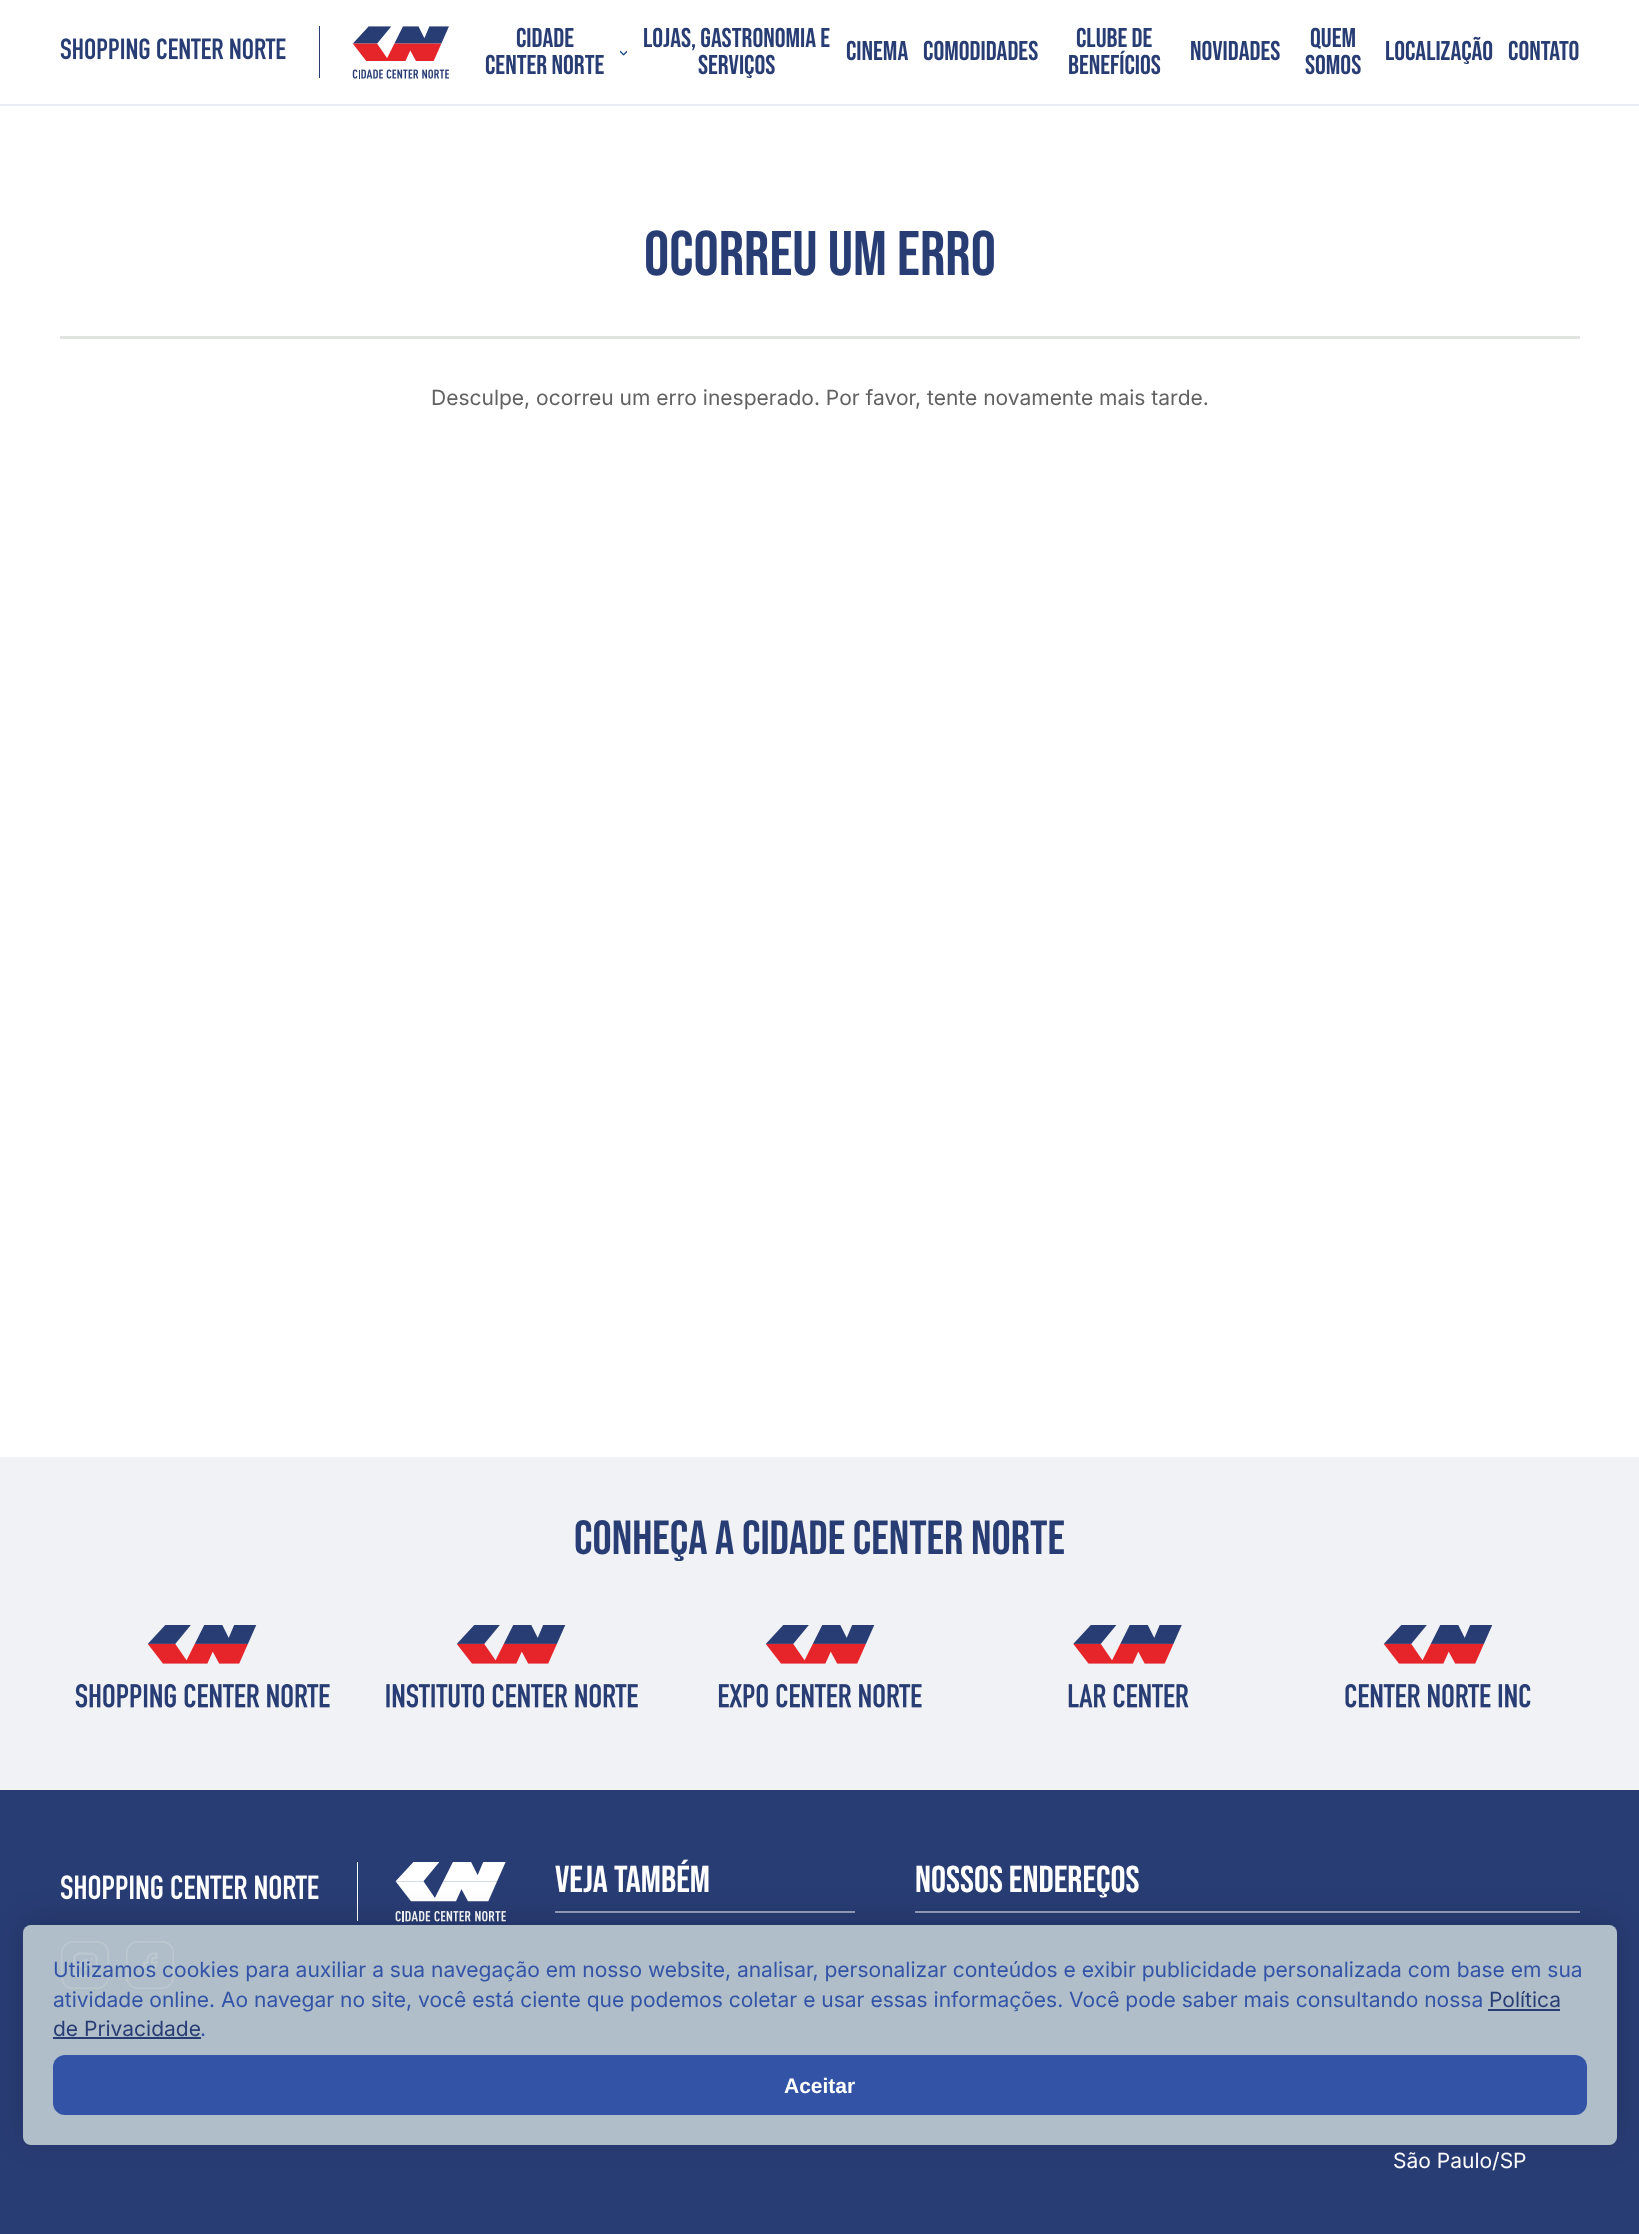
async function draw(canvas) {
  canvas.width = 1639;
  canvas.height = 2234;
  const ctx = canvas.getContext('2d');
  ctx.miterLimit = 4;
  ctx.fontKerning = 'normal';
  function label(s, x, y, font, color) {
    ctx.font = font;
    ctx.fillStyle = color;
    ctx.fillText(s, x, y);
  }
  function rect(x, y, w, h, color) {
    ctx.fillStyle = color;
    ctx.fillRect(x, y, w, h);
  }
  function roundedRect(x, y, w, h, r, color) {
    ctx.fillStyle = color;
    ctx.beginPath();
    ctx.roundRect(x, y, w, h, r);
    ctx.fill();
  }
  async function image(src, x, y, w, h) {
    const img = new Image();
    img.src = src;
    await img.decode();
    ctx.drawImage(img, x, y, w, h);
  }
  let path;

  rect(0, 0, 1639, 2234, '#fff');
  rect(0, 104, 1639, 2, '#eaeef4');
  await image('assets/img1.png', 60, 26, 389, 53);
  label('Cidade', 516, 47, '27px Bebas Neue', '#293d75');
  await image('assets/img2.png', 620, 50, 7, 6);
  label('Center Norte', 485, 74, '27px Bebas Neue', '#293d75');
  label('Lojas, Gastronomia e', 643, 47, '27px Bebas Neue', '#293d75');
  label('Serviços', 698, 74, '27px Bebas Neue', '#293d75');
  label('Cinema', 846, 60, '27px Bebas Neue', '#293d75');
  label('Comodidades', 923, 60, '27px Bebas Neue', '#293d75');
  label('Clube de', 1076, 47, '27px Bebas Neue', '#293d75');
  label('Benefícios', 1068, 74, '27px Bebas Neue', '#293d75');
  label('Novidades', 1190, 60, '27px Bebas Neue', '#293d75');
  label('Quem', 1310, 47, '27px Bebas Neue', '#293d75');
  label('somos', 1305, 74, '27px Bebas Neue', '#293d75');
  label('Localização', 1385, 60, '27px Bebas Neue', '#293d75');
  label('Contato', 1508, 60, '27px Bebas Neue', '#293d75');
  rect(60, 336, 1520, 3, '#e1e3e0');
  label('OCORREU UM ERRO', 644, 275, '63px Bebas Neue', '#293d75');
  label('Desculpe, ocorreu um erro inesperado. Por favor, tente novamente mais tarde.', 431, 405, '21px Inter', '#626262');
  rect(0, 1457, 1639, 333, '#f1f2f5');
  label('Conheça a cidade center norte', 574, 1554, '48px Bebas Neue', '#293d75');
  await image('assets/img3.png', 75, 1625, 255, 83);
  await image('assets/img4.png', 386, 1625, 252, 83);
  await image('assets/img5.png', 718, 1625, 204, 83);
  await image('assets/img6.png', 1068, 1625, 121, 83);
  await image('assets/img7.png', 1345, 1625, 186, 83);
  rect(0, 1790, 1639, 444, '#293d75');
  await image('assets/img8.png', 60, 1862, 446, 60);
  await image('assets/img9.png', 61, 1941, 48, 48);
  await image('assets/img10.png', 126, 1941, 48, 48);
  rect(555, 1911, 300, 2, '#949eba');
  label('Veja também', 555, 1892, '37.5px Bebas Neue', '#fff');
  rect(915, 1911, 665, 2, '#949eba');
  label('Nossos endereços', 915, 1892, '37.5px Bebas Neue', '#fff');
  label('São Paulo/SP', 1393, 2168, '21px Inter', '#fff');
  ctx.save();
  path = new Path2D('M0 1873H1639V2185H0ZM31 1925H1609C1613.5 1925 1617 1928.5 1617 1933V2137C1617 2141.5 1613.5 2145 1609 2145H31C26.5 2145 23 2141.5 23 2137V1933C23 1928.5 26.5 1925 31 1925Z');
  ctx.clip(path, 'evenodd');
  ctx.fillStyle = '#00000026';
  ctx.filter = 'blur(15px)';
  ctx.beginPath();
  ctx.roundRect(23, 1919, 1594, 220, 8);
  ctx.fill();
  ctx.filter = 'none';
  ctx.restore();
  roundedRect(23, 1925, 1594, 220, 8, '#b7c5cdf2');
  label('Utilizamos cookies para auxiliar a sua navegação em nosso website, analisar, personalizar conteúdos e exibir publicidade personalizada com base em sua', 53, 1977, '21px Inter', '#3354a6');
  label('atividade online. Ao navegar no site, você está ciente que podemos coletar e usar essas informações. Você pode saber mais consultando nossa', 53, 2007, '21px Inter', '#3354a6');
  label('Política', 1489, 2007, '21px Inter', '#293d75');
  rect(1488, 2009, 72, 2, '#293d75');
  label('de Privacidade', 53, 2036, '21px Inter', '#293d75');
  rect(53, 2037, 148, 2, '#293d75');
  label('.', 200, 2036, '21px Inter', '#3354a6');
  roundedRect(53, 2055, 1534, 60, 12, '#3354a6');
  label('Aceitar', 784, 2093, 'bold 21px Liberation Sans', '#fff');
}

draw(document.querySelector('canvas'));
